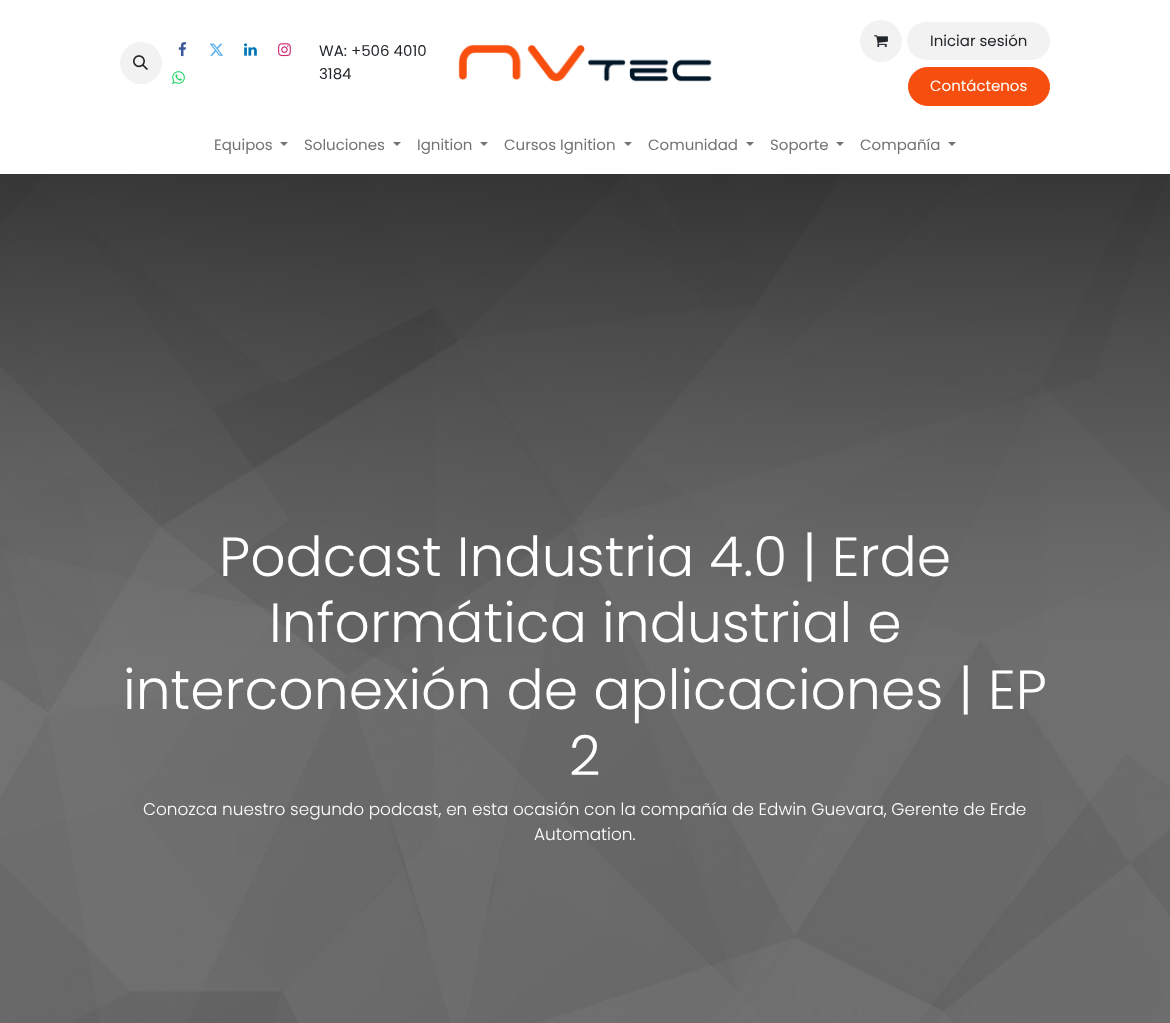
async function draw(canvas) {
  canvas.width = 1170;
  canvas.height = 1023;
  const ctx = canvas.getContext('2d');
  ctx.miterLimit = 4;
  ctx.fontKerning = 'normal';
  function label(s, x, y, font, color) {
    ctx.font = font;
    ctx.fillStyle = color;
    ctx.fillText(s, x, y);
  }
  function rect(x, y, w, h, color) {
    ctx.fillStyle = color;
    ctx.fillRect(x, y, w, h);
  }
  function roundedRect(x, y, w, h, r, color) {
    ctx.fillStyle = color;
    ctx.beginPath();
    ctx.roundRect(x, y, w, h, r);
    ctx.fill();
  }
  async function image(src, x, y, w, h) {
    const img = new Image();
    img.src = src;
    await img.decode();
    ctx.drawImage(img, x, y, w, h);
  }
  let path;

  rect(0, 0, 1170, 1023, '#fff');
  ctx.fillStyle = '#f2f2f2';
  ctx.beginPath();
  ctx.arc(141, 63, 21, 0, 2 * Math.PI);
  ctx.fill();
  await image('assets/img1.png', 133, 55, 15, 15);
  await image('assets/img2.png', 178, 42, 9, 15);
  await image('assets/img3.png', 209, 43, 14, 13);
  await image('assets/img4.png', 244, 43, 13, 13);
  await image('assets/img5.png', 278, 43, 13, 14);
  await image('assets/img6.png', 172, 71, 13, 13);
  label('WA: +506 4010', 319, 56, '15px Poppins', '#212529');
  label('3184', 319, 79, '15px Poppins', '#212529');
  await image('assets/img7.png', 458, 44, 254, 38);
  ctx.fillStyle = '#f2f2f2';
  ctx.beginPath();
  ctx.arc(881, 41, 21, 0, 2 * Math.PI);
  ctx.fill();
  await image('assets/img8.png', 874, 35, 14, 13);
  roundedRect(907, 22, 143, 38, 19, '#f2f2f2');
  label('Iniciar sesión', 930, 46, '15px Poppins', '#212529');
  ctx.fillStyle = '#f64e0e';
  ctx.beginPath();
  ctx.roundRect(908.5, 67.5, 141, 38, 19);
  ctx.fill();
  ctx.strokeStyle = '#f64e0e';
  ctx.stroke();
  label('Contáctenos', 930, 91, '15px Poppins', '#fff');
  label('Equipos', 214, 150, '15px Poppins', '#737373');
  path = new Path2D('M280 142H288L284 146Z');
  ctx.fill(path);
  label('Soluciones', 304, 150, '15px Poppins', '#737373');
  path = new Path2D('M393 142H401L397 146Z');
  ctx.fill(path);
  label('Ignition', 417, 150, '15px Poppins', '#737373');
  path = new Path2D('M480 142H488L484 146Z');
  ctx.fill(path);
  label('Cursos Ignition', 504, 150, '15px Poppins', '#737373');
  path = new Path2D('M624 142H632L628 146Z');
  ctx.fill(path);
  label('Comunidad', 648, 150, '15px Poppins', '#737373');
  path = new Path2D('M746 142H754L750 146Z');
  ctx.fill(path);
  label('Soporte', 770, 150, '15px Poppins', '#737373');
  path = new Path2D('M836 142H844L840 146Z');
  ctx.fill(path);
  label('Compañía', 860, 150, '15px Poppins', '#737373');
  path = new Path2D('M948 142H956L952 146Z');
  ctx.fill(path);
  await image('assets/img9.png', 0, 174, 1170, 849);
  label('Podcast Industria 4.0 | Erde', 219, 576, '300 55.2px Poppins', '#fff');
  label('Informática industrial e', 269, 642, '300 55.2px Poppins', '#fff');
  label('interconexión de aplicaciones | EP', 123, 709, '300 55.2px Poppins', '#fff');
  label('2', 569, 775, '300 55.2px Poppins', '#fff');
  label('Conozca nuestro segundo podcast, en esta ocasión con la compañía de Edwin Guevara, Gerente de Erde', 143, 815, '300 16.88px Poppins', '#fff');
  label('Automation.', 534, 840, '300 16.88px Poppins', '#fff');
}

draw(document.querySelector('canvas'));
